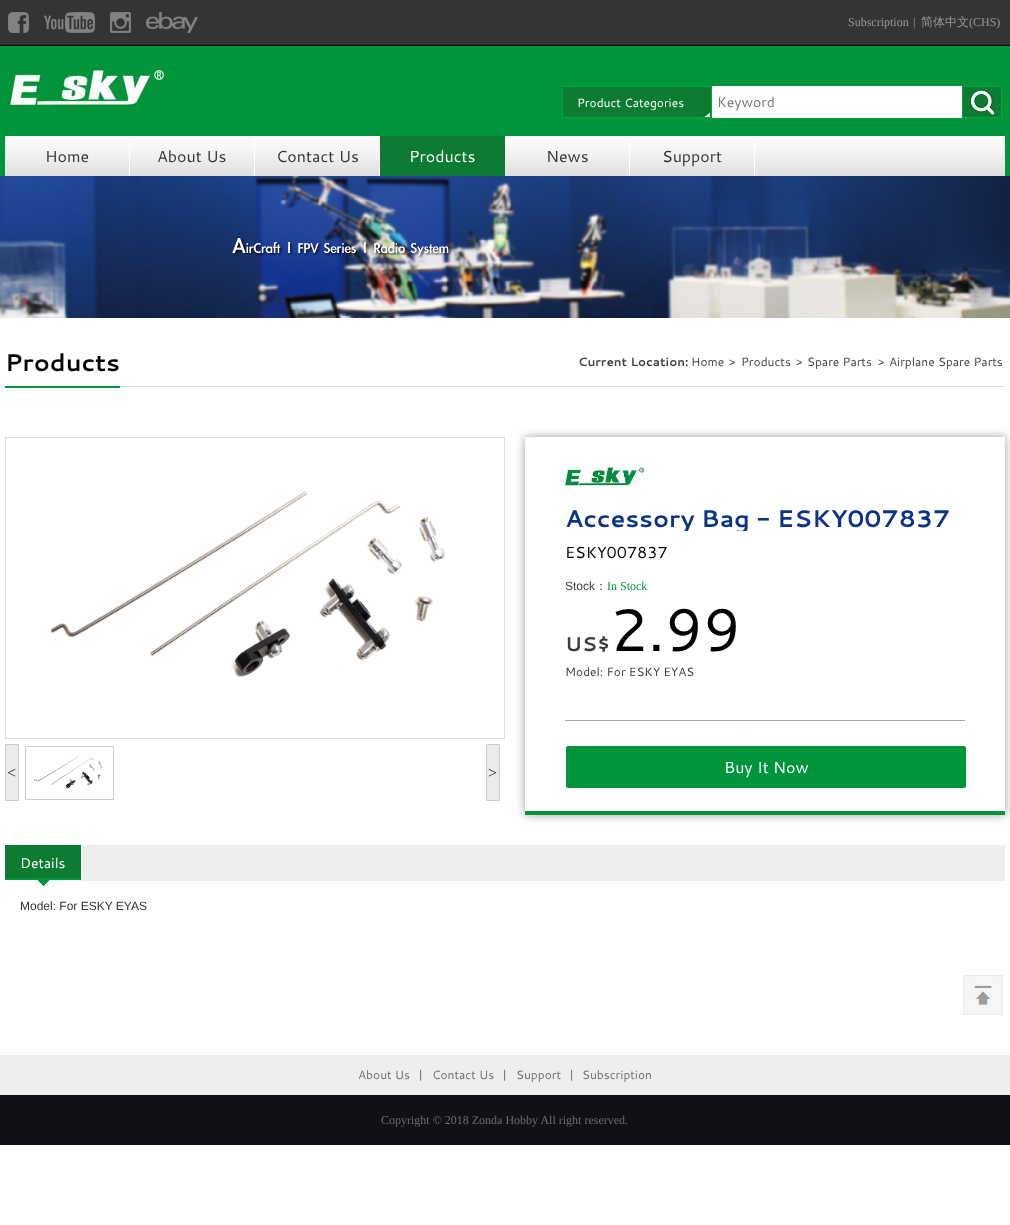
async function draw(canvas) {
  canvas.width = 1010;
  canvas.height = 1225;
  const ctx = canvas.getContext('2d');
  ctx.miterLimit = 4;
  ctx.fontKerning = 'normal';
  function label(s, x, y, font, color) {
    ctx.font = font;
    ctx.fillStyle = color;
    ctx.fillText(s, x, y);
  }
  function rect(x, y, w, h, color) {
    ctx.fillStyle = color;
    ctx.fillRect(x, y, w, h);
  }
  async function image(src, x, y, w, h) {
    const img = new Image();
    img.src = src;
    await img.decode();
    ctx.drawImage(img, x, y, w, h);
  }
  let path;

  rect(0, 0, 1010, 1225, '#fff');
  rect(0, 0, 1010, 45, '#343434');
  rect(0, 45, 1010, 1, '#000');
  await image('assets/img1.png', 8, 12, 21, 21);
  await image('assets/img2.png', 44, 12, 51, 21);
  await image('assets/img3.png', 110, 12, 21, 21);
  await image('assets/img4.png', 146, 12, 52, 21);
  label('Subscription', 848, 26, '12px Liberation Serif', '#9a9a9a');
  label('|', 913, 26, '12px Liberation Serif', '#9a9a9a');
  label('简体中文', 921, 26, '500 12px WenQuanYi Zen Hei', '#9a9a9a');
  label('(CHS)', 969, 26, '12px Liberation Serif', '#9a9a9a');
  rect(0, 46, 1010, 130, '#00953a');
  await image('assets/img5.png', 5, 67, 160, 40);
  ctx.fillStyle = '#0d7c32';
  ctx.beginPath();
  ctx.rect(562.5, 86.5, 149, 31);
  ctx.fill();
  ctx.strokeStyle = '#00a73b';
  ctx.stroke();
  label('Product Categories', 577, 107, '12px Cantarell', '#fff');
  await image('assets/img6.png', 705, 110, 5, 7);
  rect(712, 86, 250, 32, '#fff');
  label('Keyword', 717, 107, '14px Cantarell', '#757575');
  rect(963, 87, 38, 30, '#0d7c32');
  await image('assets/img7.png', 970, 90, 25, 25);
  ctx.strokeRect(962.5, 86.5, 39, 31);
  await image('assets/img8.png', 5, 136, 1000, 40);
  rect(129, 136, 1, 40, '#fff');
  label('Home', 45, 162, '16px Cantarell', '#333');
  rect(254, 136, 1, 40, '#fff');
  label('About Us', 157, 162, '16px Cantarell', '#333');
  rect(379, 136, 1, 40, '#fff');
  label('Contact Us', 276, 162, '16px Cantarell', '#333');
  rect(380, 136, 125, 40, '#0d7c32');
  label('Products', 409, 162, '16px Cantarell', '#fff');
  rect(629, 136, 1, 40, '#fff');
  label('News', 546, 162, '16px Cantarell', '#333');
  rect(754, 136, 1, 40, '#fff');
  label('Support', 662, 162, '16px Cantarell', '#333');
  await image('assets/img9.png', 0, 176, 1010, 142);
  rect(120, 386, 885, 1, '#dfdfdf');
  rect(5, 386, 115, 2, '#00953a');
  label('Products', 5, 371, 'bold 24px Cantarell', '#000');
  label('Current Location:', 578, 366, 'bold 12px Cantarell', '#434343');
  label('Home', 691, 366, '12px Cantarell', '#434343');
  label('>', 729, 366, '12px Cantarell', '#434343');
  label('Products', 741, 366, '12px Cantarell', '#434343');
  label('>', 796, 366, '12px Cantarell', '#434343');
  label('Spare Parts', 807, 366, '12px Cantarell', '#434343');
  label('>', 878, 366, '12px Cantarell', '#434343');
  label('Airplane Spare Parts', 889, 366, '12px Cantarell', '#434343');
  ctx.strokeStyle = '#dfdfdf';
  ctx.strokeRect(5.5, 437.5, 499, 301);
  await image('assets/img10.png', 50, 491, 395, 187);
  ctx.fillStyle = '#ebebeb';
  ctx.beginPath();
  ctx.rect(5.5, 744.5, 13, 56);
  ctx.fill();
  ctx.strokeStyle = '#ccc';
  ctx.stroke();
  label('<', 7, 778, '16px Liberation Serif', '#333');
  ctx.strokeRect(25.5, 746.5, 88, 53);
  await image('assets/img11.png', 34, 756, 69, 33);
  ctx.fillStyle = '#ebebeb';
  ctx.beginPath();
  ctx.rect(486.5, 744.5, 13, 56);
  ctx.fill();
  ctx.stroke();
  label('>', 488, 778, '16px Liberation Serif', '#333');
  ctx.save();
  path = new Path2D('M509 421H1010V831H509ZM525 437H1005V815H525Z');
  ctx.clip(path, 'evenodd');
  ctx.fillStyle = '#9a9a9a';
  ctx.filter = 'blur(5px)';
  ctx.beginPath();
  ctx.rect(525, 437, 480, 378);
  ctx.fill();
  ctx.filter = 'none';
  ctx.restore();
  rect(525, 811, 480, 4, '#00953a');
  await image('assets/img12.png', 565, 467, 80, 19);
  ctx.save();
  ctx.beginPath();
  ctx.rect(565, 501, 400, 30);
  ctx.clip();
  label('Accessory Bag - ESKY007837', 565, 527, 'bold 24px Cantarell', '#0c3385');
  ctx.restore();
  label('ESKY007837', 565, 558, '16px Cantarell', '#000');
  label('Stock', 565, 590, '12px Liberation Sans', '#3e3a39');
  label('：', 595, 590, '500 12px WenQuanYi Zen Hei', '#3e3a39');
  label('In Stock', 607, 590, '12px Liberation Serif', '#009639');
  label('US$', 565, 651, 'bold 20px Cantarell', '#3e3a39');
  label('2.99', 610, 651, '60px Cantarell', '#000');
  label('Model: For ESKY EYAS', 565, 676, '12px Cantarell', '#3e3a39');
  rect(565, 720, 400, 1, '#a9a9a9');
  ctx.fillStyle = '#00953a';
  ctx.beginPath();
  ctx.roundRect(565.5, 745.5, 401, 43, 2.5);
  ctx.fill();
  ctx.strokeStyle = '#fff';
  ctx.stroke();
  label('Buy It Now', 724, 773, '16px Cantarell', '#fff');
  rect(82, 845, 923, 36, '#eee');
  rect(5, 845, 76, 33, '#0d7c32');
  await image('assets/img13.png', 5, 878, 76, 8);
  label('Details', 20, 868, '14px Cantarell', '#fff');
  label('Model: For ESKY EYAS', 20, 910, '12px Liberation Sans', '#333');
  await image('assets/img14.png', 963, 975, 40, 40);
  rect(0, 1055, 1010, 40, '#eee');
  label('About Us', 358, 1079, '12px Cantarell', '#6d6e72');
  label('|', 418, 1079, '12px Cantarell', '#6d6e72');
  label('Contact Us', 432, 1079, '12px Cantarell', '#6d6e72');
  label('|', 502, 1079, '12px Cantarell', '#6d6e72');
  label('Support', 516, 1079, '12px Cantarell', '#6d6e72');
  label('|', 569, 1079, '12px Cantarell', '#6d6e72');
  label('Subscription', 582, 1079, '12px Cantarell', '#6d6e72');
  rect(0, 1095, 1010, 50, '#111015');
  label('Copyright © 2018 Zonda Hobby All right reserved.', 381, 1124, '12px Liberation Serif', '#6d6e72');
}

draw(document.querySelector('canvas'));
